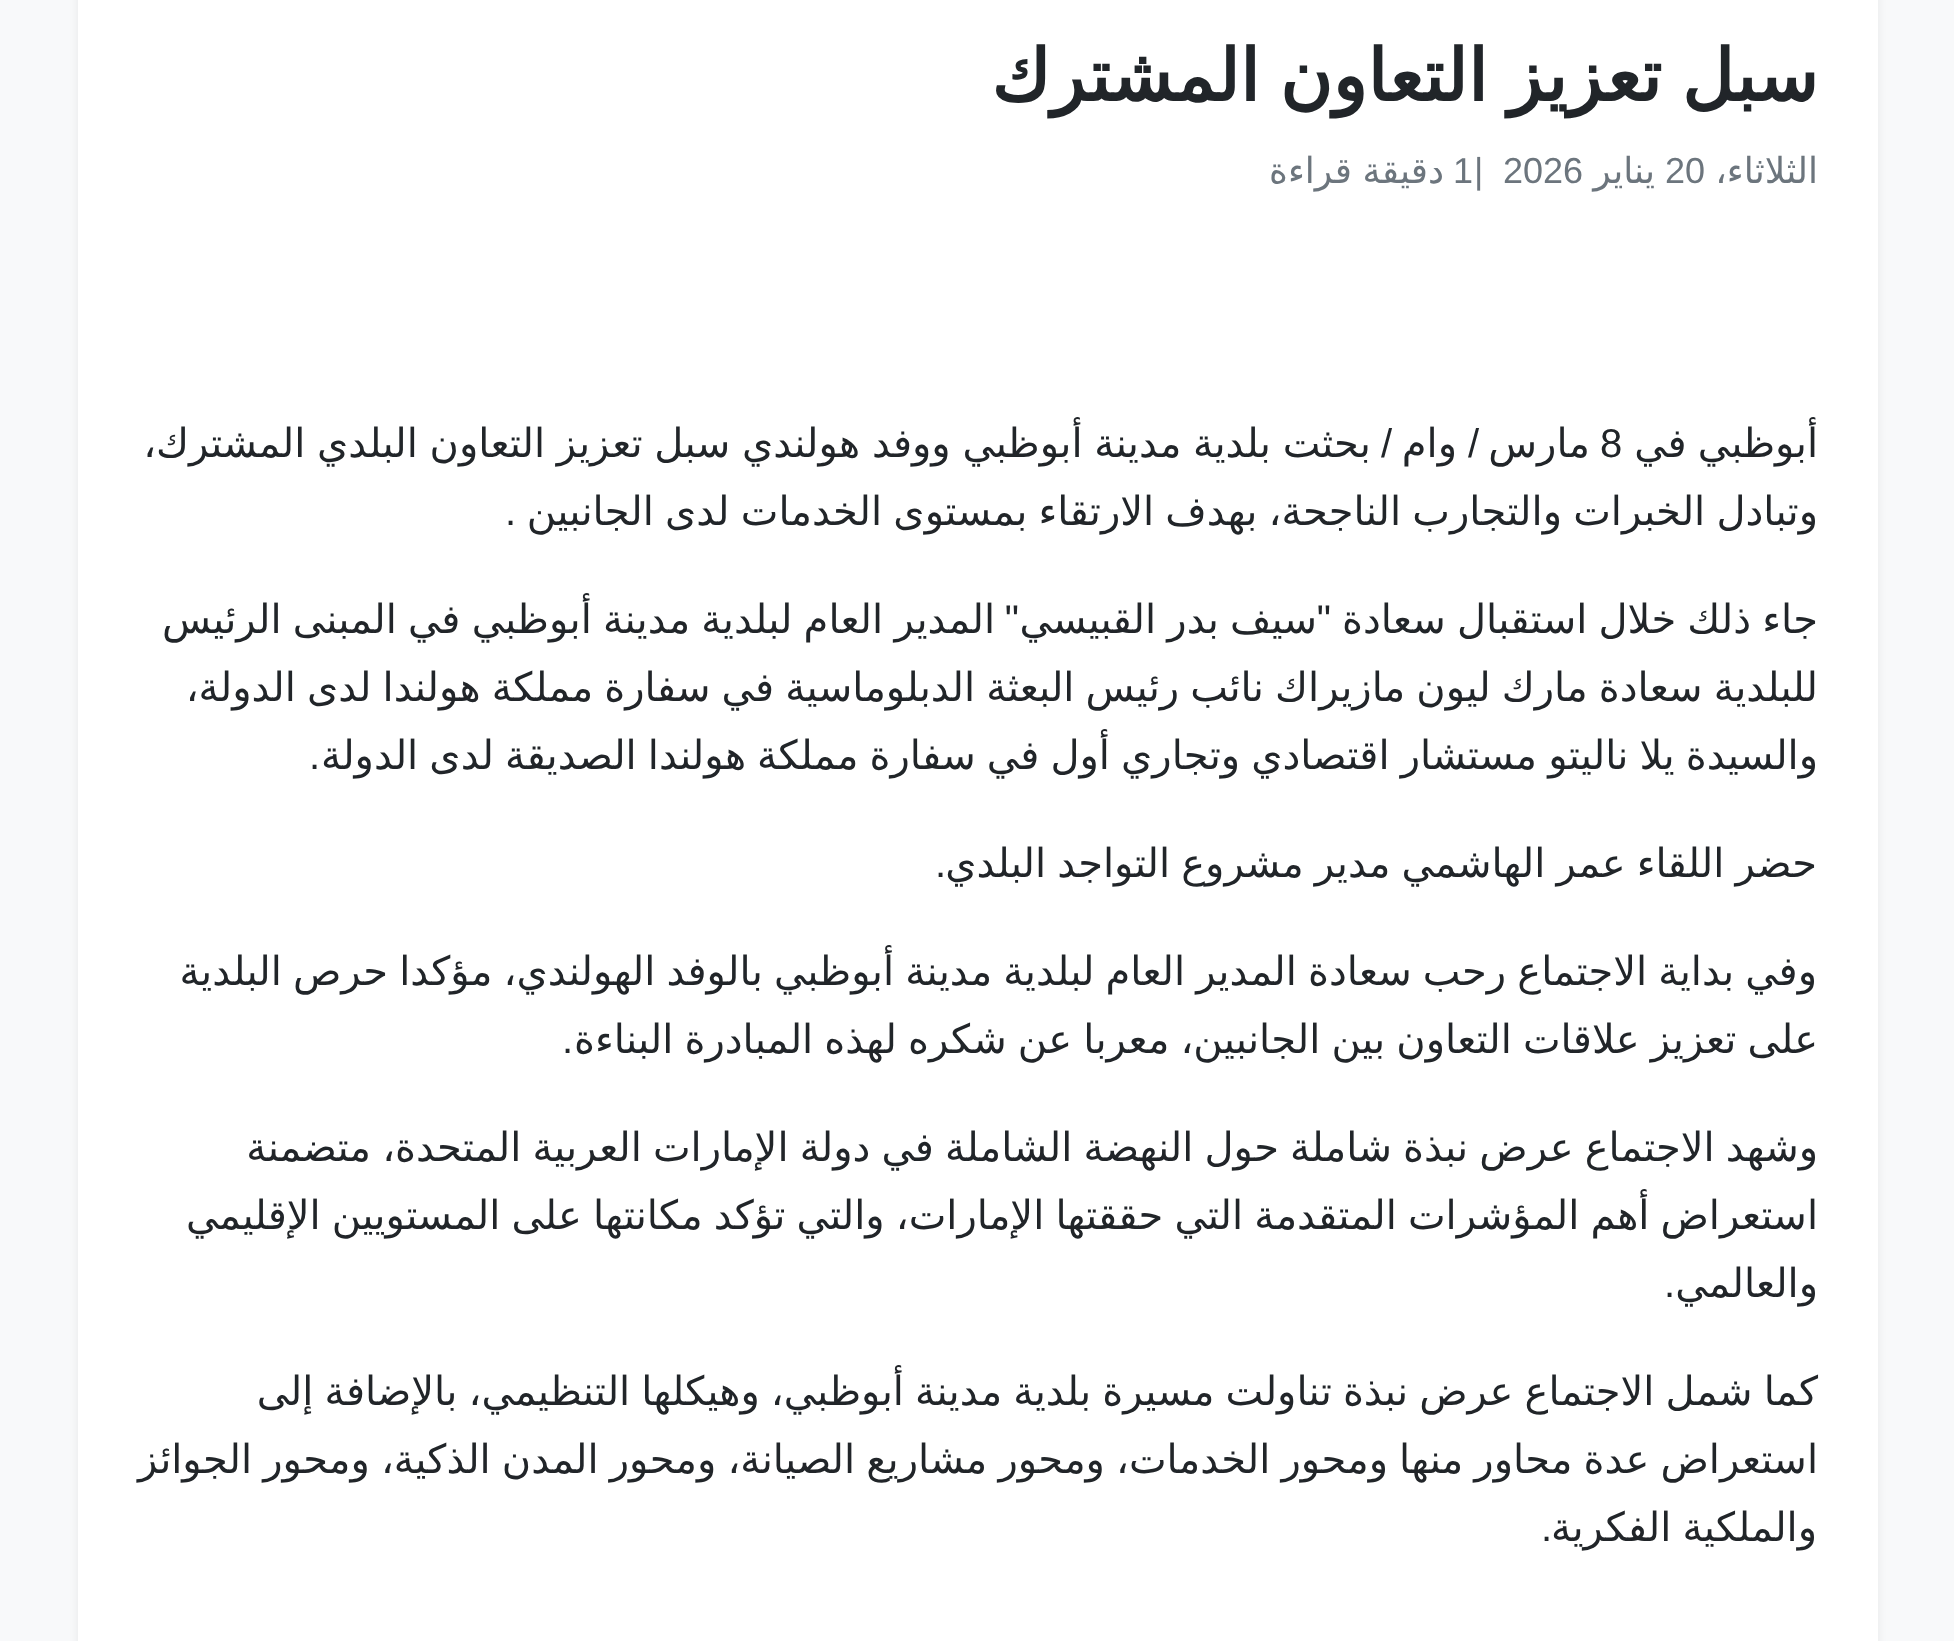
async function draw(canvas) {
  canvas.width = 1954;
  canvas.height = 1641;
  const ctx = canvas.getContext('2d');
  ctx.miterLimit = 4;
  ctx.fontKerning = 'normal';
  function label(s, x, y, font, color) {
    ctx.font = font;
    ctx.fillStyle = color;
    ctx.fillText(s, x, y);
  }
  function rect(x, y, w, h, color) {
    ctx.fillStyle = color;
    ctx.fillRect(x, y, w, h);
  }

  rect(0, 0, 1954, 1641, '#f8f9fa');
  ctx.fillStyle = '#00000012';
  ctx.filter = 'blur(5px)';
  ctx.beginPath();
  ctx.roundRect(78, -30, 1800, 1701, 15);
  ctx.fill();
  ctx.filter = 'none';
  rect(78, 0, 1800, 1641, '#fff');
  ctx.wordSpacing = '-3px';
  ctx.direction = 'rtl';
  label('سبل تعزيز التعاون المشترك', 1818, 101, 'bold 72px DejaVu Sans', '#212529');
  ctx.wordSpacing = '0px';
  label('الثلاثاء،', 1818, 183, '36px DejaVu Sans', '#6c757d');
  ctx.direction = 'ltr';
  label('20', 1665, 183, '36px Liberation Sans', '#6c757d');
  ctx.direction = 'rtl';
  label('يناير', 1655, 183, '36px DejaVu Sans', '#6c757d');
  ctx.direction = 'ltr';
  label('2026', 1503, 183, '36px Liberation Sans', '#6c757d');
  label('|', 1474, 183, '36px Liberation Sans', '#6c757d');
  label('1', 1453, 183, '36px Liberation Sans', '#6c757d');
  ctx.wordSpacing = '-1px';
  ctx.direction = 'rtl';
  label('دقيقة قراءة', 1444, 183, '36px DejaVu Sans', '#6c757d');
  ctx.wordSpacing = '-1.6px';
  label('أبوظبي في', 1818, 457, '40px DejaVu Sans', '#212529');
  ctx.wordSpacing = '0px';
  ctx.direction = 'ltr';
  label('8', 1600, 457, '40px Liberation Sans', '#212529');
  ctx.direction = 'rtl';
  label('مارس', 1590, 457, '40px DejaVu Sans', '#212529');
  label('/', 1479, 457, '40px Liberation Sans', '#212529');
  label('وام', 1457, 457, '40px DejaVu Sans', '#212529');
  label('/', 1392, 457, '40px Liberation Sans', '#212529');
  ctx.wordSpacing = '-1px';
  label('بحثت بلدية مدينة أبوظبي ووفد هولندي سبل تعزيز التعاون البلدي المشترك،', 1371, 457, '40px DejaVu Sans', '#212529');
  ctx.wordSpacing = '-1.5px';
  label('وتبادل الخبرات والتجارب الناجحة، بهدف الارتقاء بمستوى الخدمات لدى الجانبين', 1818, 525, '40px DejaVu Sans', '#212529');
  ctx.wordSpacing = '0px';
  label('.', 516, 525, '40px Liberation Sans', '#212529');
  ctx.wordSpacing = '-1.5px';
  label('جاء ذلك خلال استقبال سعادة', 1818, 633, '40px DejaVu Sans', '#212529');
  ctx.wordSpacing = '0px';
  label('"', 1331, 633, '40px Liberation Sans', '#212529');
  ctx.wordSpacing = '-1.5px';
  label('سيف بدر القبيسي', 1317, 633, '40px DejaVu Sans', '#212529');
  ctx.wordSpacing = '0px';
  label('"', 1019, 633, '40px Liberation Sans', '#212529');
  ctx.wordSpacing = '-1.5px';
  label('المدير العام لبلدية مدينة أبوظبي في المبنى الرئيس', 995, 633, '40px DejaVu Sans', '#212529');
  ctx.wordSpacing = '-1.6px';
  label('للبلدية سعادة مارك ليون مازيراك نائب رئيس البعثة الدبلوماسية في سفارة مملكة هولندا لدى الدولة،', 1818, 701, '40px DejaVu Sans', '#212529');
  label('والسيدة يلا ناليتو مستشار اقتصادي وتجاري أول في سفارة مملكة هولندا الصديقة لدى الدولة', 1818, 769, '40px DejaVu Sans', '#212529');
  ctx.wordSpacing = '0px';
  label('.', 320, 769, '40px Liberation Sans', '#212529');
  ctx.wordSpacing = '-1.6px';
  label('حضر اللقاء عمر الهاشمي مدير مشروع التواجد البلدي', 1817, 877, '40px DejaVu Sans', '#212529');
  ctx.wordSpacing = '0px';
  label('.', 946, 877, '40px Liberation Sans', '#212529');
  ctx.wordSpacing = '-1.6px';
  label('وفي بداية الاجتماع رحب سعادة المدير العام لبلدية مدينة أبوظبي بالوفد الهولندي، مؤكدا حرص البلدية', 1817, 985, '40px DejaVu Sans', '#212529');
  label('على تعزيز علاقات التعاون بين الجانبين، معربا عن شكره لهذه المبادرة البناءة', 1818, 1053, '40px DejaVu Sans', '#212529');
  ctx.wordSpacing = '0px';
  label('.', 573, 1053, '40px Liberation Sans', '#212529');
  ctx.wordSpacing = '-1.6px';
  label('وشهد الاجتماع عرض نبذة شاملة حول النهضة الشاملة في دولة الإمارات العربية المتحدة، متضمنة', 1818, 1161, '40px DejaVu Sans', '#212529');
  label('استعراض أهم المؤشرات المتقدمة التي حققتها الإمارات، والتي تؤكد مكانتها على المستويين الإقليمي', 1818, 1229, '40px DejaVu Sans', '#212529');
  ctx.wordSpacing = '0px';
  label('والعالمي', 1818, 1297, '40px DejaVu Sans', '#212529');
  label('.', 1675, 1297, '40px Liberation Sans', '#212529');
  ctx.wordSpacing = '-1.6px';
  label('كما شمل الاجتماع عرض نبذة تناولت مسيرة بلدية مدينة أبوظبي، وهيكلها التنظيمي، بالإضافة إلى', 1818, 1405, '40px DejaVu Sans', '#212529');
  label('استعراض عدة محاور منها ومحور الخدمات، ومحور مشاريع الصيانة، ومحور المدن الذكية، ومحور الجوائز', 1818, 1473, '40px DejaVu Sans', '#212529');
  label('والملكية الفكرية', 1817, 1541, '40px DejaVu Sans', '#212529');
  ctx.wordSpacing = '0px';
  label('.', 1552, 1541, '40px Liberation Sans', '#212529');
}

draw(document.querySelector('canvas'));
